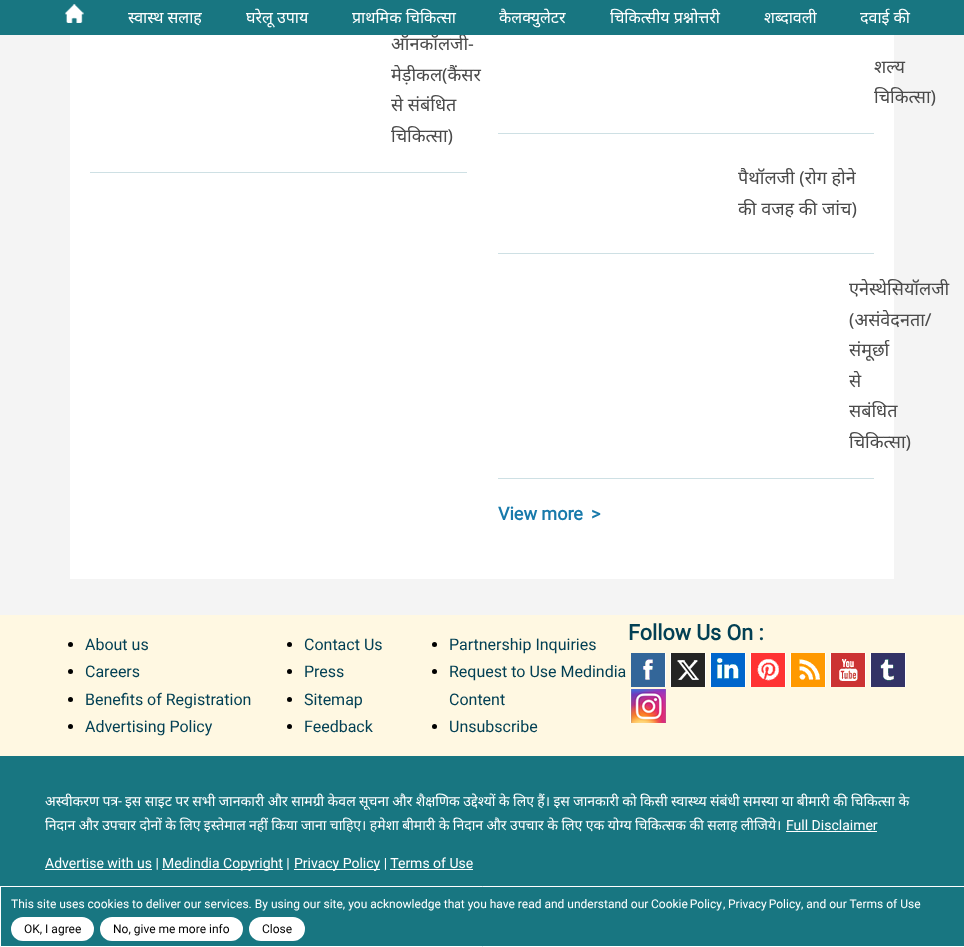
async function draw(canvas) {
  canvas.width = 964;
  canvas.height = 947;
  const ctx = canvas.getContext('2d');
  ctx.miterLimit = 4;
  ctx.fontKerning = 'normal';
  function label(s, x, y, font, color) {
    ctx.font = font;
    ctx.fillStyle = color;
    ctx.fillText(s, x, y);
  }
  function rect(x, y, w, h, color) {
    ctx.fillStyle = color;
    ctx.fillRect(x, y, w, h);
  }
  function roundedRect(x, y, w, h, r, color) {
    ctx.fillStyle = color;
    ctx.beginPath();
    ctx.roundRect(x, y, w, h, r);
    ctx.fill();
  }
  async function image(src, x, y, w, h) {
    const img = new Image();
    img.src = src;
    await img.decode();
    ctx.drawImage(img, x, y, w, h);
  }

  rect(0, 0, 964, 947, '#f4f4f4');
  rect(70, 35, 824, 544, '#fff');
  label('ऑनकॉलजी-', 391, 50, '18px Noto Sans', '#4a4a4a');
  rect(0, 0, 964, 35, '#187681');
  await image('assets/img1.png', 65, 4, 19, 19);
  label('स्वास्थ सलाह', 128, 23, '16px Noto Sans', '#fff');
  label('घरेलू उपाय', 246, 23, '16px Noto Sans', '#fff');
  label('प्राथमिक चिकित्सा', 352, 23, '16px Noto Sans', '#fff');
  label('कैलक्युलेटर', 499, 23, '16px Noto Sans', '#fff');
  label('चिकित्सीय प्रश्नोत्तरी', 610, 23, '16px Noto Sans', '#fff');
  label('शब्दावली', 764, 23, '16px Noto Sans', '#fff');
  label('दवाई की', 860, 23, '16px Noto Sans', '#fff');
  rect(90, 172, 377, 1, '#cee0e4');
  label('मेड़ीकल(कैंसर', 391, 81, '18px Noto Sans', '#4a4a4a');
  label('से संबंधित', 391, 111, '18px Noto Sans', '#4a4a4a');
  label('चिकित्सा)', 391, 142, '18px Noto Sans', '#4a4a4a');
  rect(498, 133, 376, 1, '#cee0e4');
  label('शल्य', 874, 73, '18px Noto Sans', '#4a4a4a');
  label('चिकित्सा)', 874, 103, '18px Noto Sans', '#4a4a4a');
  rect(498, 253, 376, 1, '#cee0e4');
  label('पैथॉलजी (रोग होने', 738, 184, '18px Noto Sans', '#4a4a4a');
  label('की वजह की जांच)', 738, 215, '18px Noto Sans', '#4a4a4a');
  rect(498, 478, 376, 1, '#cee0e4');
  label('एनेस्थेसियॉलजी', 849, 295, '18px Noto Sans', '#4a4a4a');
  label('(असंवेदनता/', 849, 326, '18px Noto Sans', '#4a4a4a');
  label('संमूर्छा', 849, 356, '18px Noto Sans', '#4a4a4a');
  label('से', 849, 387, '18px Noto Sans', '#4a4a4a');
  label('सबंधित', 849, 417, '18px Noto Sans', '#4a4a4a');
  label('चिकित्सा)', 849, 448, '18px Noto Sans', '#4a4a4a');
  label('View more', 498, 520, 'bold 18px Roboto', '#187aab');
  label('>', 591, 520, 'bold 18px Roboto', '#187aab');
  rect(0, 615, 964, 141, '#fff8e2');
  label('Follow Us On :', 628, 640, 'bold 21.5px Roboto', '#034054');
  await image('assets/img2.png', 631, 653, 35, 34);
  await image('assets/img3.png', 670, 653, 36, 34);
  await image('assets/img4.png', 710, 653, 36, 34);
  await image('assets/img5.png', 750, 653, 36, 34);
  await image('assets/img6.png', 790, 653, 36, 34);
  await image('assets/img7.png', 830, 653, 36, 34);
  await image('assets/img8.png', 870, 653, 36, 34);
  await image('assets/img9.png', 630, 689, 36, 34);
  ctx.fillStyle = '#000';
  ctx.beginPath();
  ctx.arc(70.5, 644.5, 2.5, 0, 2 * Math.PI);
  ctx.fill();
  label('About us', 85, 650, '16px Roboto', '#034054');
  ctx.fillStyle = '#000';
  ctx.beginPath();
  ctx.arc(70.5, 671.5, 2.5, 0, 2 * Math.PI);
  ctx.fill();
  label('Careers', 85, 677, '16px Roboto', '#034054');
  ctx.fillStyle = '#000';
  ctx.beginPath();
  ctx.arc(70.5, 699.5, 2.5, 0, 2 * Math.PI);
  ctx.fill();
  label('Benefits of Registration', 85, 705, '16px Roboto', '#034054');
  ctx.fillStyle = '#000';
  ctx.beginPath();
  ctx.arc(70.5, 726.5, 2.5, 0, 2 * Math.PI);
  ctx.fill();
  label('Advertising Policy', 85, 732, '16px Roboto', '#034054');
  ctx.fillStyle = '#000';
  ctx.beginPath();
  ctx.arc(289.5, 644.5, 2.5, 0, 2 * Math.PI);
  ctx.fill();
  label('Contact Us', 304, 650, '16px Roboto', '#034054');
  ctx.fillStyle = '#000';
  ctx.beginPath();
  ctx.arc(289.5, 671.5, 2.5, 0, 2 * Math.PI);
  ctx.fill();
  label('Press', 304, 677, '16px Roboto', '#034054');
  ctx.fillStyle = '#000';
  ctx.beginPath();
  ctx.arc(289.5, 699.5, 2.5, 0, 2 * Math.PI);
  ctx.fill();
  label('Sitemap', 304, 705, '16px Roboto', '#034054');
  ctx.fillStyle = '#000';
  ctx.beginPath();
  ctx.arc(289.5, 726.5, 2.5, 0, 2 * Math.PI);
  ctx.fill();
  label('Feedback', 304, 732, '16px Roboto', '#034054');
  ctx.fillStyle = '#000';
  ctx.beginPath();
  ctx.arc(434.5, 644.5, 2.5, 0, 2 * Math.PI);
  ctx.fill();
  label('Partnership Inquiries', 449, 650, '16px Roboto', '#034054');
  ctx.fillStyle = '#000';
  ctx.beginPath();
  ctx.arc(434.5, 671.5, 2.5, 0, 2 * Math.PI);
  ctx.fill();
  label('Request to Use Medindia', 449, 677, '16px Roboto', '#034054');
  label('Content', 449, 705, '16px Roboto', '#034054');
  ctx.fillStyle = '#000';
  ctx.beginPath();
  ctx.arc(434.5, 726.5, 2.5, 0, 2 * Math.PI);
  ctx.fill();
  label('Unsubscribe', 449, 732, '16px Roboto', '#034054');
  rect(0, 756, 964, 130, '#187681');
  ctx.wordSpacing = '-0.2px';
  label('अस्वीकरण पत्र', 45, 806, '14px Noto Sans', '#fff');
  ctx.wordSpacing = '0px';
  label('-', 118, 806, '14px Roboto', '#fff');
  ctx.wordSpacing = '-0.2px';
  label('इस साइट पर सभी जानकारी और सामग्री केवल सूचना और शैक्षणिक उद्देश्यों के लिए हैं। इस जानकारी को किसी स्वास्थ्य संबंधी समस्या या बीमारी की चिकित्सा के', 125, 806, '14px Noto Sans', '#fff');
  label('निदान और उपचार दोनों के लिए इस्तेमाल नहीं किया जाना चाहिए। हमेशा बीमारी के निदान और उपचार के लिए एक योग्य चिकित्सक की सलाह लीजिये।', 45, 830, '14px Noto Sans', '#fff');
  ctx.wordSpacing = '0px';
  label('Full Disclaimer', 786, 830, '14px Roboto', '#fff');
  rect(786, 831, 91, 1, '#fff');
  rect(45, 869, 107, 1, '#fff');
  label('Advertise with us |', 45, 868, '14px Roboto', '#fff');
  rect(162, 869, 121, 1, '#fff');
  label('Medindia Copyright |', 162, 868, '14px Roboto', '#fff');
  rect(294, 869, 86, 1, '#fff');
  label('Privacy Policy | Terms of Use', 294, 868, '14px Roboto', '#fff');
  rect(390, 869, 83, 1, '#fff');
  ctx.fillStyle = '#187681';
  ctx.beginPath();
  ctx.rect(0.5, 886.5, 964, 60);
  ctx.fill();
  ctx.strokeStyle = '#fff';
  ctx.stroke();
  label('This site uses cookies to deliver our services. By using our site, you acknowledge that you have read and understand our', 11, 908, '12px Roboto', '#fff');
  ctx.wordSpacing = '-1px';
  label('Cookie Policy', 651, 908, '12px Roboto', '#fff');
  ctx.wordSpacing = '0px';
  label(',', 723, 908, '12px Roboto', '#fff');
  ctx.wordSpacing = '-1px';
  label('Privacy Policy', 728, 908, '12px Roboto', '#fff');
  ctx.wordSpacing = '0px';
  label(', and our Terms of Use', 801, 908, '12px Roboto', '#fff');
  roundedRect(11, 917, 83, 24, 12, '#fff');
  label('OK, I agree', 24, 933, '12px Roboto', '#000');
  roundedRect(100, 917, 143, 24, 12, '#fff');
  label('No, give me more info', 113, 933, '12px Roboto', '#000');
  roundedRect(249, 917, 56, 24, 12, '#fff');
  label('Close', 262, 933, '12px Roboto', '#000');
}

draw(document.querySelector('canvas'));
